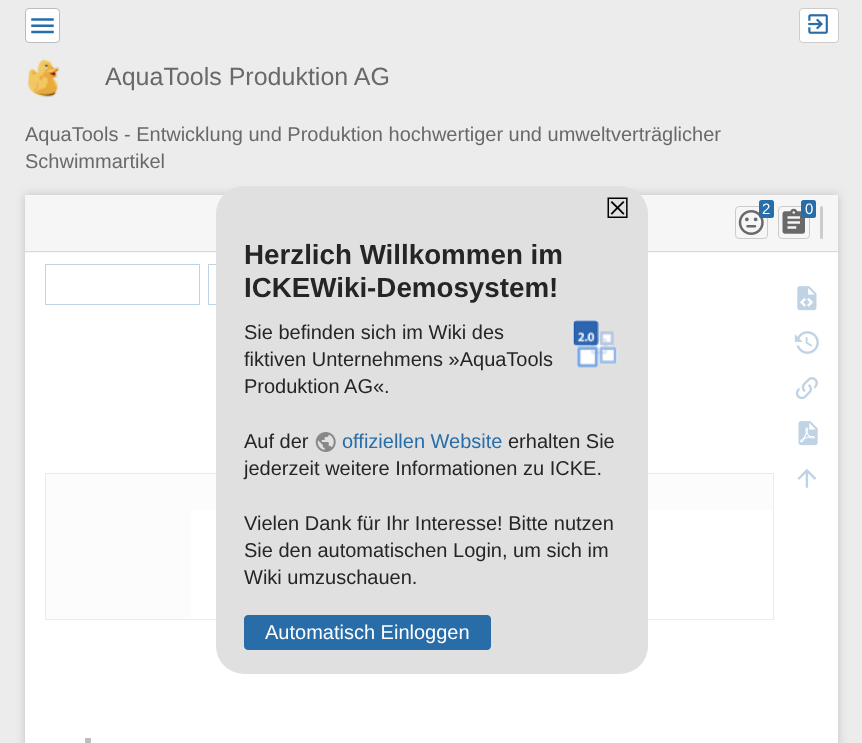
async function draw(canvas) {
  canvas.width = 862;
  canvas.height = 743;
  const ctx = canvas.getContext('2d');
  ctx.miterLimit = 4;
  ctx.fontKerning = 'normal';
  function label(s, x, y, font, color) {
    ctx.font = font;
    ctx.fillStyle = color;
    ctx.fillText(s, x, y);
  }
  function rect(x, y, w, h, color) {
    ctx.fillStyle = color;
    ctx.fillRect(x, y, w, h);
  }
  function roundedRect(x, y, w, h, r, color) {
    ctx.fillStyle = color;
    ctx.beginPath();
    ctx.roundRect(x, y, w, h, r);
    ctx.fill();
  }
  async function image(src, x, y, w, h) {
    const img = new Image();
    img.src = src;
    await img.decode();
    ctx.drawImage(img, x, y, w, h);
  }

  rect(0, 0, 862, 743, '#ececec');
  ctx.fillStyle = '#fff';
  ctx.beginPath();
  ctx.roundRect(799.5, 8.5, 39, 34, 3.5);
  ctx.fill();
  ctx.strokeStyle = '#ccc';
  ctx.stroke();
  await image('assets/img1.png', 808, 14, 20, 20);
  ctx.beginPath();
  ctx.roundRect(25.5, 8.5, 34, 34, 3.5);
  ctx.fill();
  ctx.strokeStyle = '#bbb';
  ctx.stroke();
  await image('assets/img2.png', 31, 18, 23, 16);
  await image('assets/img3.png', 27, 59, 32, 38);
  label('AquaTools Produktion AG', 105, 85, '25px Liberation Sans', '#696969');
  label('AquaTools - Entwicklung und Produktion hochwertiger und umweltverträglicher', 25, 141, '20px Liberation Sans', '#696969');
  label('Schwimmartikel', 25, 168, '20px Liberation Sans', '#696969');
  ctx.fillStyle = '#99999980';
  ctx.filter = 'blur(5px)';
  ctx.beginPath();
  ctx.rect(25, 195, 813, 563);
  ctx.fill();
  ctx.filter = 'none';
  rect(25, 253, 813, 490, '#fff');
  ctx.strokeStyle = '#286da8';
  ctx.strokeRect(45.5, 264.5, 154, 40);
  ctx.strokeRect(208.5, 264.5, 65, 40);
  ctx.strokeStyle = '#bbb';
  ctx.strokeRect(45.5, 473.5, 728, 146);
  rect(46, 474, 727, 36, '#f6f6f6');
  rect(46, 510, 145, 109, '#f6f6f6');
  rect(85, 738, 6, 5, '#252525');
  await image('assets/img8.png', 797, 286, 20, 25);
  await image('assets/img9.png', 794, 331, 25, 23);
  await image('assets/img10.png', 795, 377, 23, 23);
  await image('assets/img11.png', 798, 421, 20, 25);
  await image('assets/img12.png', 797, 468, 20, 20);
  rect(45, 264, 774, 479, '#ffffffb3');
  rect(25, 195, 813, 58, '#f6f6f6');
  rect(25, 251, 813, 1, '#dadada');
  roundedRect(216, 186, 432, 488, 28, '#e0e0e0');
  label('☒', 605, 218, '28px DejaVu Sans', '#000');
  label('Herzlich Willkommen im', 244, 264, 'bold 27.75px Liberation Sans', '#252525');
  label('ICKEWiki-Demosystem!', 244, 297, 'bold 27.75px Liberation Sans', '#252525');
  label('Sie befinden sich im Wiki des', 244, 339, '20px Liberation Sans', '#252525');
  label('fiktiven Unternehmens »AquaTools', 244, 366, '20px Liberation Sans', '#252525');
  label('Produktion AG«.', 244, 393, '20px Liberation Sans', '#252525');
  await image('assets/img4.png', 572, 320, 46, 48);
  label('Auf der', 244, 448, '20px Liberation Sans', '#252525');
  await image('assets/img5.png', 315, 432, 21, 20);
  label('offiziellen Website', 342, 448, '20px Liberation Sans', '#286da8');
  label('erhalten Sie', 508, 448, '20px Liberation Sans', '#252525');
  label('jederzeit weitere Informationen zu ICKE.', 244, 475, '20px Liberation Sans', '#252525');
  label('Vielen Dank für Ihr Interesse! Bitte nutzen', 244, 530, '20px Liberation Sans', '#252525');
  label('Sie den automatischen Login, um sich im', 244, 557, '20px Liberation Sans', '#252525');
  label('Wiki umzuschauen.', 244, 584, '20px Liberation Sans', '#252525');
  ctx.fillStyle = '#286da8';
  ctx.beginPath();
  ctx.roundRect(244.5, 615.5, 246, 34, 3.5);
  ctx.fill();
  ctx.strokeStyle = '#286da8';
  ctx.stroke();
  label('Automatisch Einloggen', 265, 639, '20px Liberation Sans', '#fff');
  ctx.beginPath();
  ctx.roundRect(735.5, 206.5, 32, 32, 3.5);
  ctx.strokeStyle = '#ccc';
  ctx.stroke();
  await image('assets/img6.png', 738, 210, 26, 25);
  roundedRect(759, 200, 15, 18, 2.5, '#286da8');
  label('2', 762, 214, '15px Liberation Sans', '#fff');
  ctx.beginPath();
  ctx.roundRect(778.5, 206.5, 31, 32, 3.5);
  ctx.stroke();
  await image('assets/img7.png', 782, 208, 23, 26);
  roundedRect(801, 200, 15, 18, 2.5, '#286da8');
  label('0', 805, 214, '15px Liberation Sans', '#fff');
  roundedRect(820, 206, 3, 33, 1.5, '#ccc');
}

draw(document.querySelector('canvas'));
